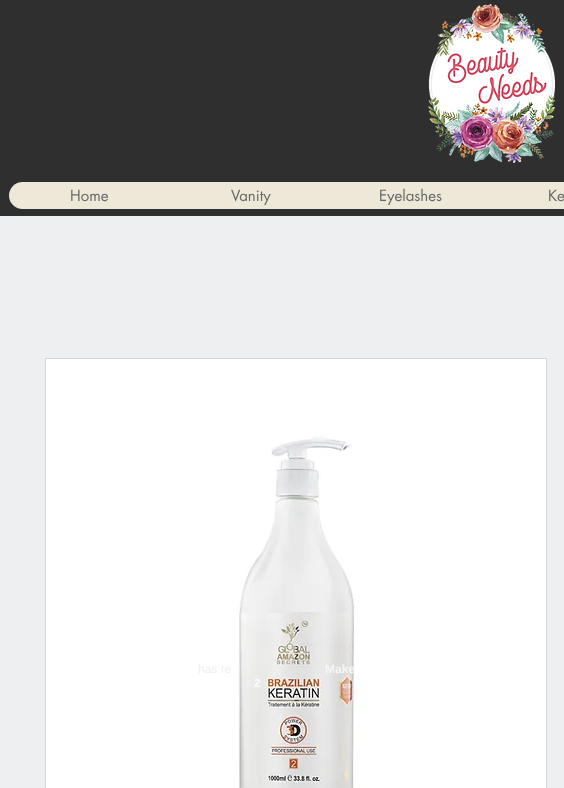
async function draw(canvas) {
  canvas.width = 564;
  canvas.height = 788;
  const ctx = canvas.getContext('2d');
  ctx.miterLimit = 4;
  ctx.fontKerning = 'normal';
  function label(s, x, y, font, color) {
    ctx.font = font;
    ctx.fillStyle = color;
    ctx.fillText(s, x, y);
  }
  function rect(x, y, w, h, color) {
    ctx.fillStyle = color;
    ctx.fillRect(x, y, w, h);
  }
  function roundedRect(x, y, w, h, r, color) {
    ctx.fillStyle = color;
    ctx.beginPath();
    ctx.roundRect(x, y, w, h, r);
    ctx.fill();
  }
  async function image(src, x, y, w, h) {
    const img = new Image();
    img.src = src;
    await img.decode();
    ctx.drawImage(img, x, y, w, h);
  }

  rect(0, 0, 564, 788, '#edeff0');
  rect(0, 0, 564, 216, '#2f2f2f');
  await image('assets/img1.png', 428, 4, 127, 159);
  roundedRect(9, 182, 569, 27, 13.5, '#eee8d8');
  label('Home', 70, 201, '15px futura', '#696969');
  label('Vanity', 231, 201, '15px futura', '#696969');
  label('Eyelashes', 379, 201, '15px futura', '#696969');
  label('Ke', 548, 201, '15px futura', '#696969');
  ctx.strokeStyle = '#d6d6d6';
  ctx.strokeRect(45.5, 358.5, 501, 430);
  await image('assets/img2.png', 46, 359, 500, 429);
  label('has re', 198, 673, '12px Liberation Sans', '#efefee');
  label('Make', 325, 673, 'bold 12px Liberation Sans', '#f6f6f6');
  label('2', 254, 687, 'bold 12px Liberation Sans', '#fcfcfc');
}

draw(document.querySelector('canvas'));
